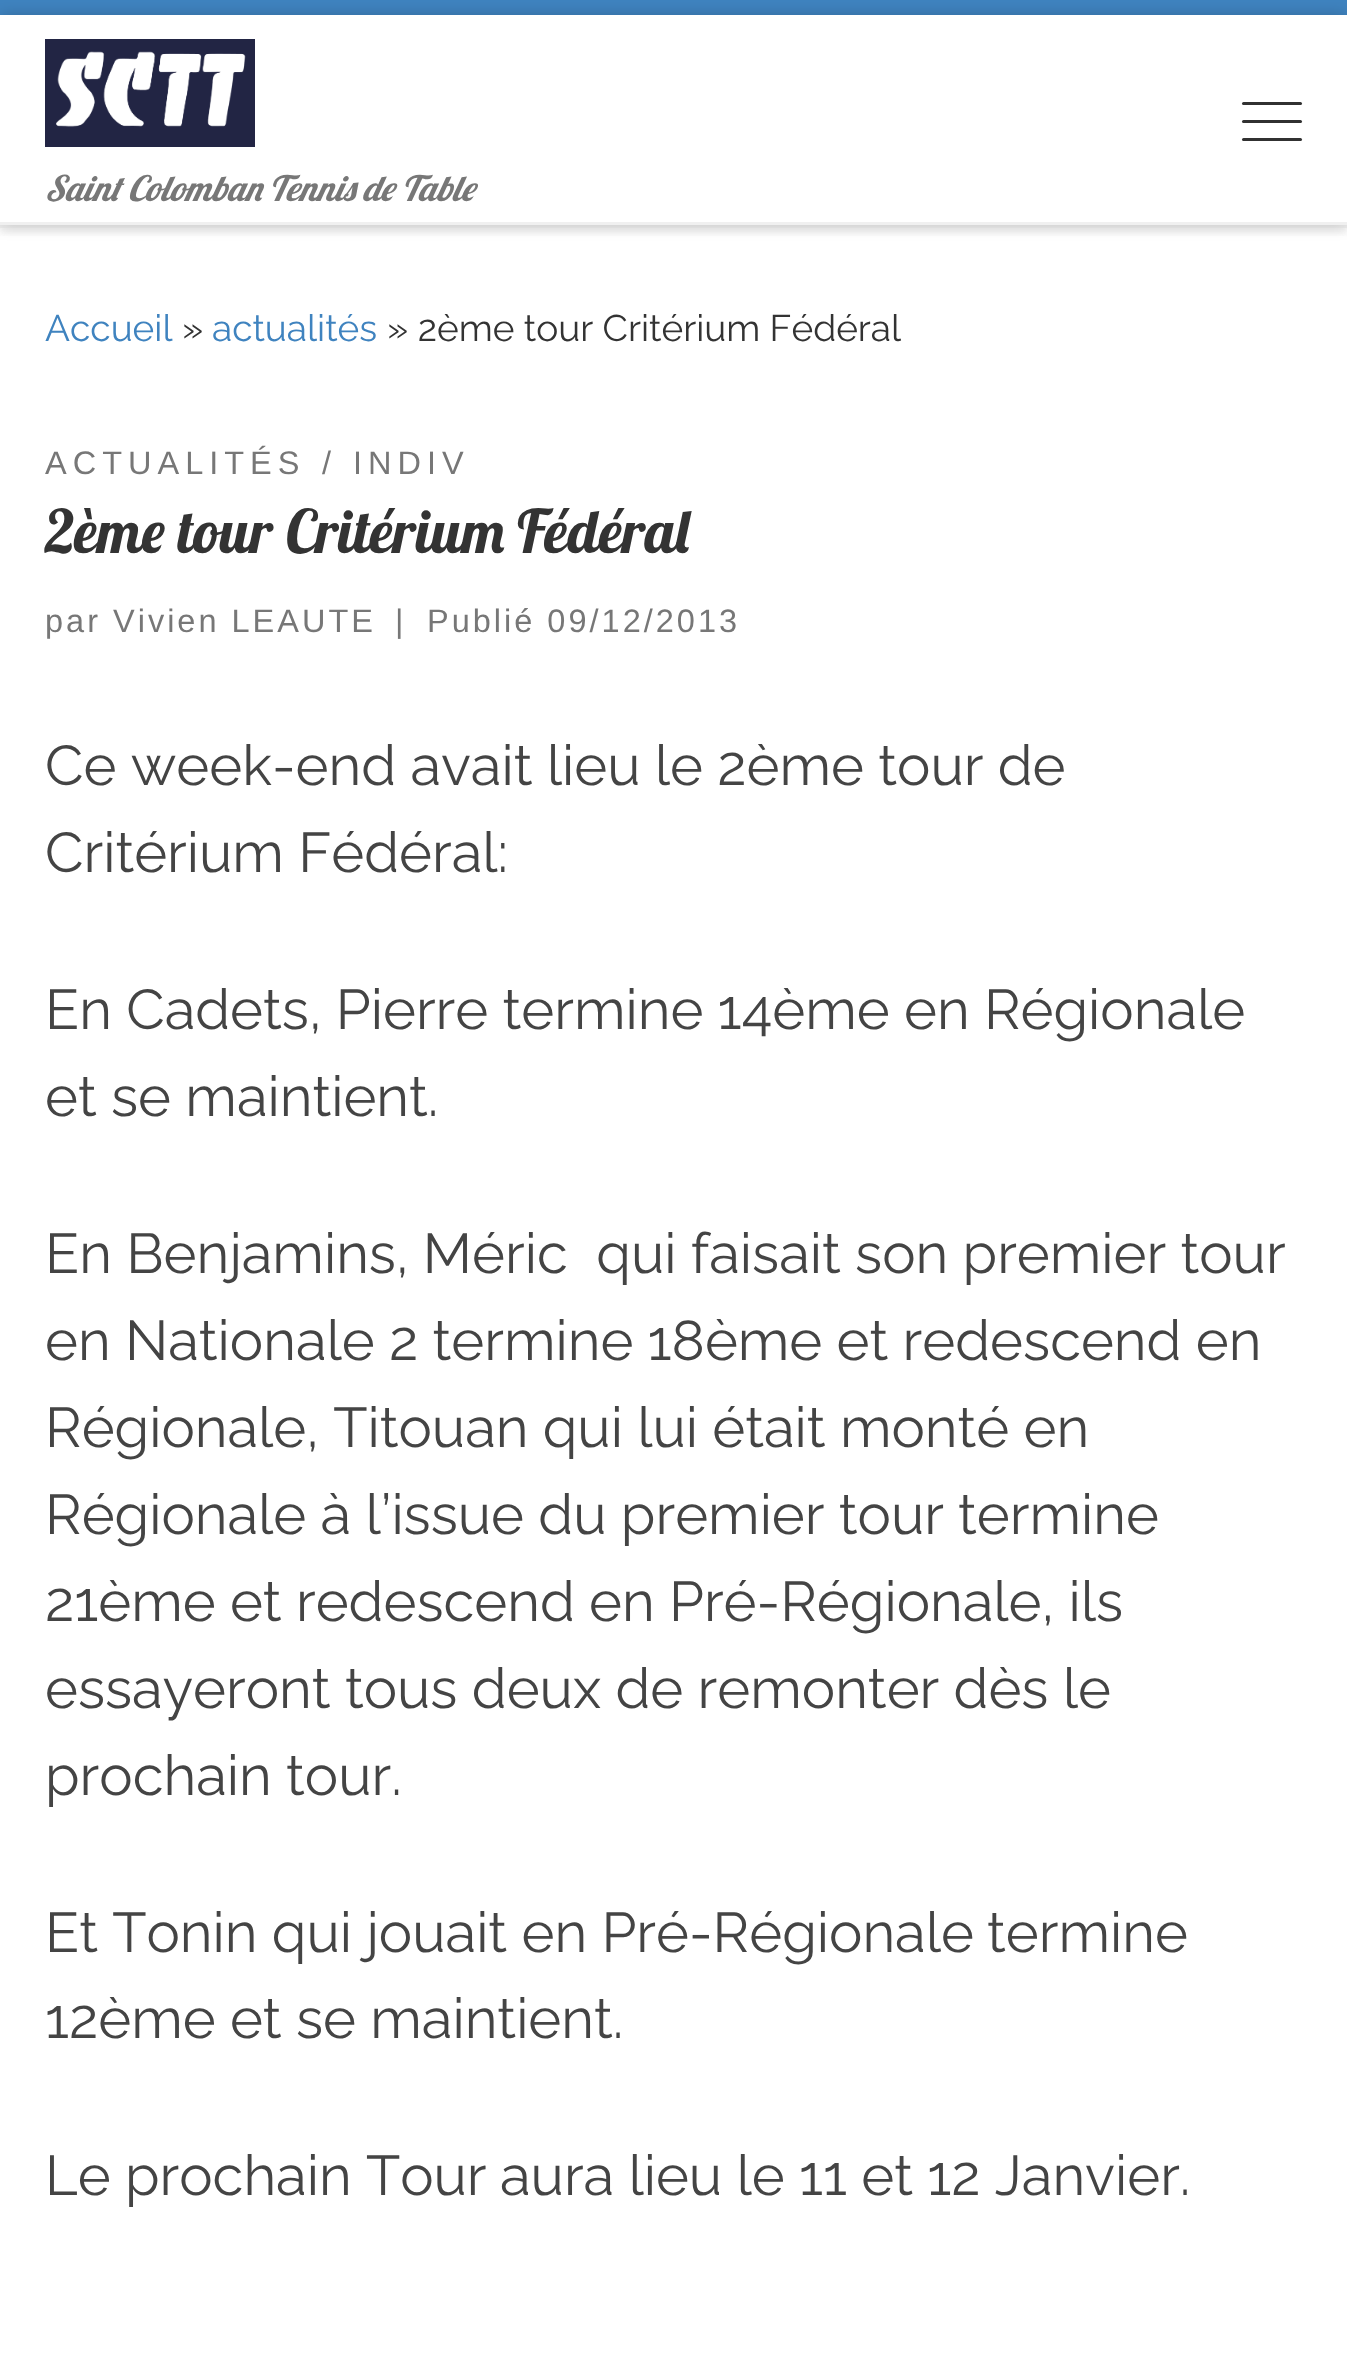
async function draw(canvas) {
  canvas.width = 1347;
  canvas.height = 2372;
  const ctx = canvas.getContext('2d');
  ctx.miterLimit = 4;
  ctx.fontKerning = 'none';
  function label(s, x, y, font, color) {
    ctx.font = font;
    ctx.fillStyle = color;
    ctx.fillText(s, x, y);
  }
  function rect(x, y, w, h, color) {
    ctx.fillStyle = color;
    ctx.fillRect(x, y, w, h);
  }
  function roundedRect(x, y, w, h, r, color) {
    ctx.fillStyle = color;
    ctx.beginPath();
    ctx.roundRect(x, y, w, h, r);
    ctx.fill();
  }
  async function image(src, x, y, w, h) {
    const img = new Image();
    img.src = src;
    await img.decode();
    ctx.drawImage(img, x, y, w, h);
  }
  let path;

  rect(0, 0, 1347, 2372, '#fff');
  ctx.save();
  ctx.beginPath();
  ctx.rect(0, 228, 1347, 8);
  ctx.clip();
  ctx.fillStyle = '#66666614';
  ctx.filter = 'blur(3px)';
  ctx.beginPath();
  ctx.rect(0, 6, 1347, 228);
  ctx.fill();
  ctx.filter = 'none';
  ctx.restore();
  rect(0, 0, 1347, 15, '#3f83bf');
  rect(0, 225, 1347, 3, '#efefef');
  ctx.save();
  path = new Path2D('M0 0H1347V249H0ZM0 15H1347V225H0Z');
  ctx.clip(path, 'evenodd');
  ctx.fillStyle = '#00000033';
  ctx.filter = 'blur(7.5px)';
  ctx.beginPath();
  ctx.rect(0, 15, 1347, 210);
  ctx.fill();
  ctx.filter = 'none';
  ctx.restore();
  roundedRect(1242, 102, 60, 3, 1.5, '#313131');
  roundedRect(1242, 120, 60, 3, 1.5, '#313131');
  roundedRect(1242, 138, 60, 3, 1.5, '#313131');
  await image('assets/img1.png', 45, 39, 210, 108);
  label('Saint Colomban Tennis de Table', 45, 201, 'italic 35px Lobster', '#777');
  rect(0, 222, 1347, 3, '#f0f0f0');
  label('Accueil', 45, 341, '100 37px Raleway', '#3f83bf');
  label('»', 182, 341, '100 37px Raleway', '#333');
  label('actualités', 212, 341, '100 37px Raleway', '#3f83bf');
  label('» 2ème tour Critérium Fédéral', 387, 341, '100 37px Raleway', '#333');
  ctx.letterSpacing = '6px';
  label('ACTUALITÉS', 45, 474, '32.5px Liberation Sans', '#777');
  label('/', 322, 474, '32.5px Liberation Sans', '#777');
  label('INDIV', 353, 474, '32.5px Liberation Sans', '#777');
  ctx.letterSpacing = '0px';
  label('2ème tour Critérium Fédéral', 45, 553, '60px Lobster', '#333');
  ctx.letterSpacing = '3px';
  label('par Vivien LEAUTE', 45, 632, '32.5px Liberation Sans', '#777');
  label('|', 395, 632, '32.5px Liberation Sans', '#777');
  label('Publié 09/12/2013', 427, 632, '32.5px Liberation Sans', '#777');
  ctx.letterSpacing = '0px';
  label('Ce week-end avait lieu le 2ème tour de', 45, 785, '100 56.1px Raleway', '#444');
  label('Critérium Fédéral:', 45, 872, '100 56.1px Raleway', '#444');
  label('En Cadets, Pierre termine 14ème en Régionale', 45, 1029, '100 56.1px Raleway', '#444');
  label('et se maintient.', 45, 1116, '100 56.1px Raleway', '#444');
  label('En Benjamins, Méric  qui faisait son premier tour', 45, 1273, '100 56.1px Raleway', '#444');
  label('en Nationale 2 termine 18ème et redescend en', 45, 1360, '100 56.1px Raleway', '#444');
  label('Régionale, Titouan qui lui était monté en', 45, 1447, '100 56.1px Raleway', '#444');
  label('Régionale à l’issue du premier tour', 45, 1534, '100 56.1px Raleway', '#444');
  label('termine', 958, 1534, '100 56.1px Raleway', '#444');
  label('21ème et redescend en Pré-Régionale, ils', 45, 1621, '100 56.1px Raleway', '#444');
  label('essayeront tous deux de remonter dès le', 45, 1708, '100 56.1px Raleway', '#444');
  label('prochain tour.', 45, 1795, '100 56.1px Raleway', '#444');
  label('Et Tonin qui jouait en Pré-Régionale', 45, 1952, '100 56.1px Raleway', '#444');
  label('termine', 987, 1952, '100 56.1px Raleway', '#444');
  label('12ème et se maintient.', 45, 2038, '100 56.1px Raleway', '#444');
  label('Le prochain Tour', 45, 2195, '100 56.1px Raleway', '#444');
  label('aura lieu le 11 et 12 Janvier.', 500, 2195, '100 56.1px Raleway', '#444');
}

draw(document.querySelector('canvas'));
